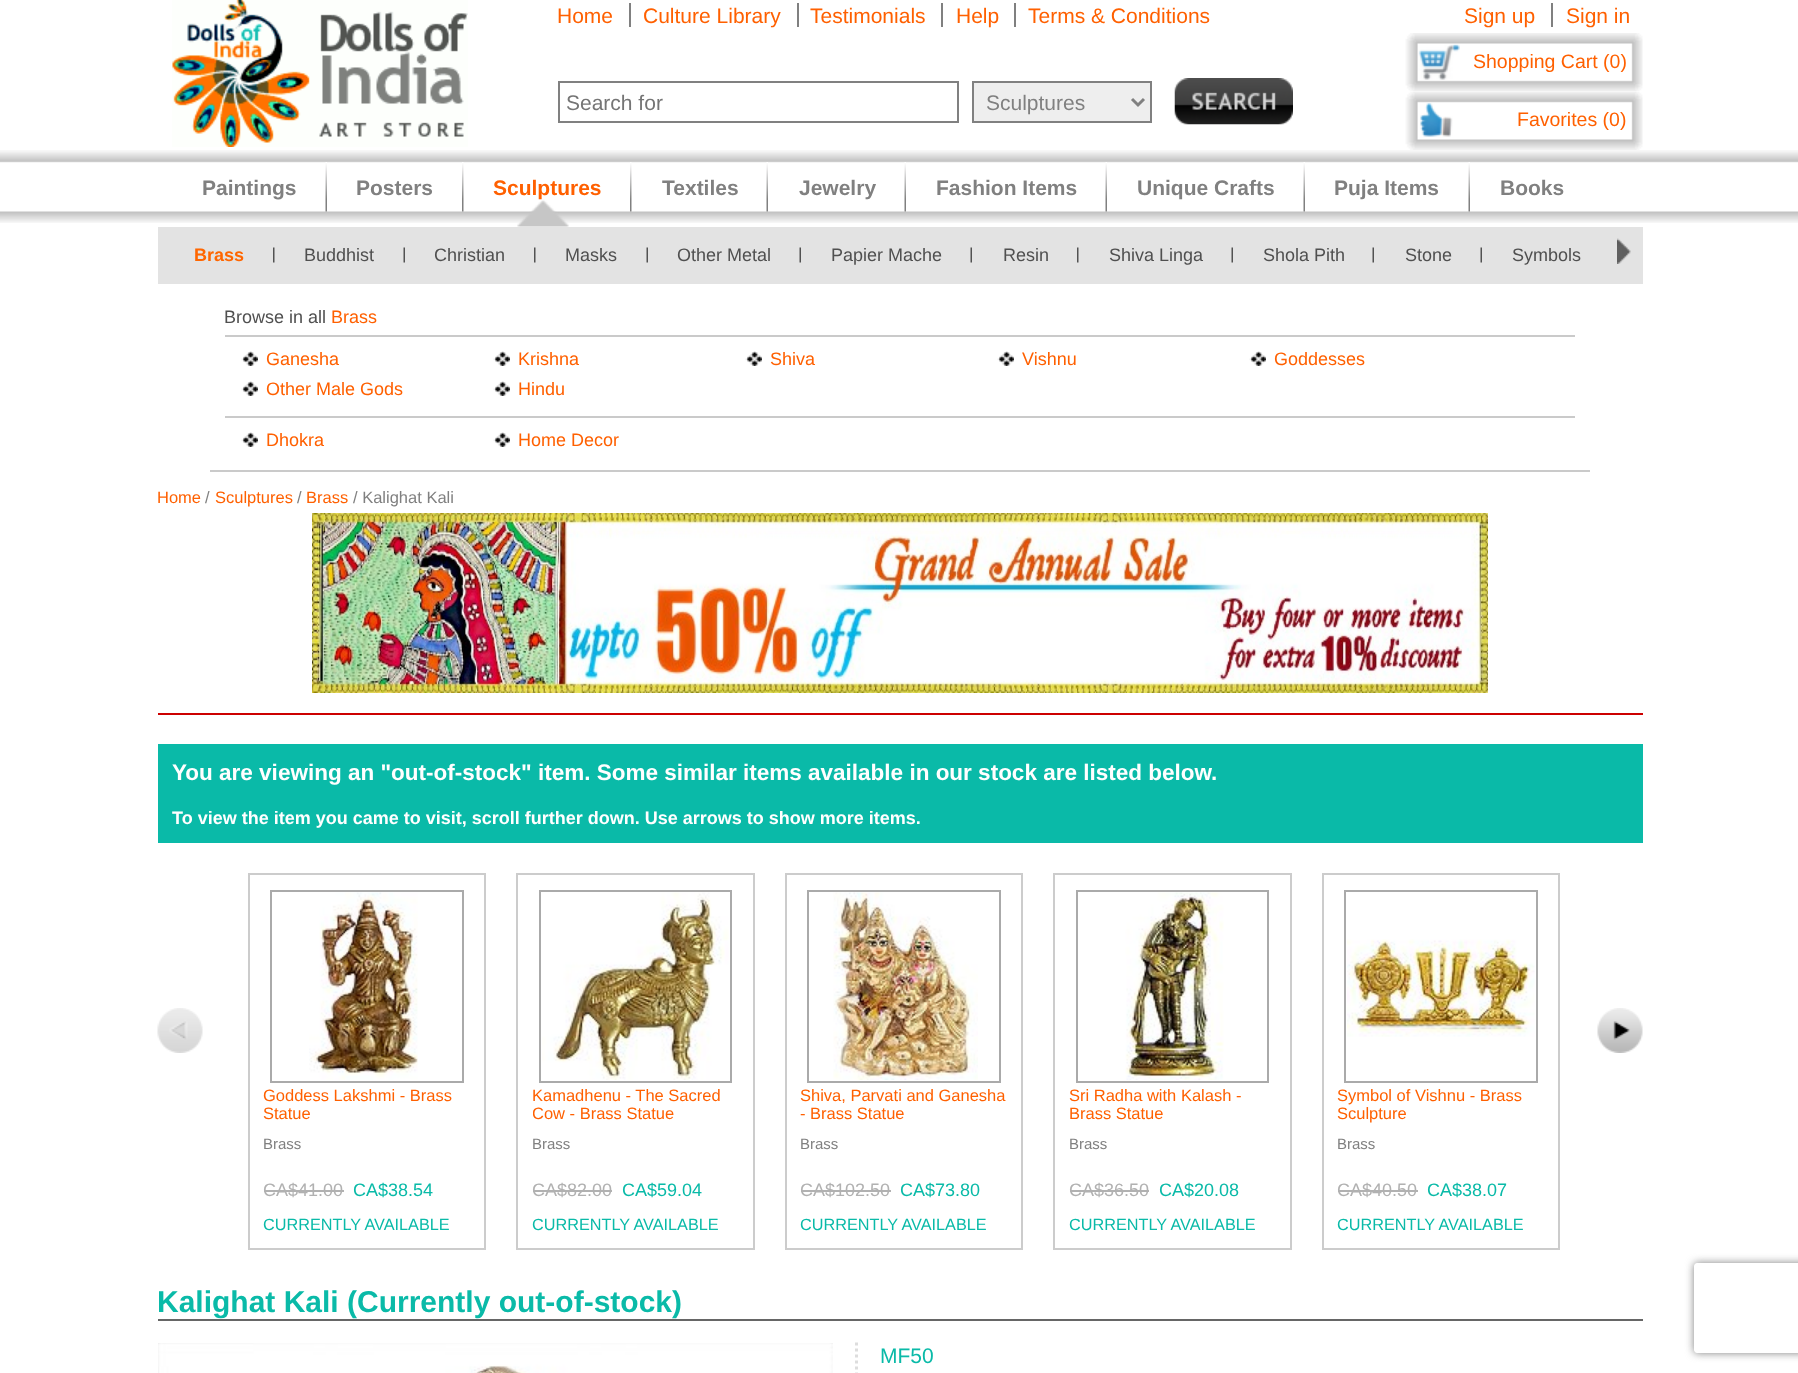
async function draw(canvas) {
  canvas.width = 1798;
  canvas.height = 1373;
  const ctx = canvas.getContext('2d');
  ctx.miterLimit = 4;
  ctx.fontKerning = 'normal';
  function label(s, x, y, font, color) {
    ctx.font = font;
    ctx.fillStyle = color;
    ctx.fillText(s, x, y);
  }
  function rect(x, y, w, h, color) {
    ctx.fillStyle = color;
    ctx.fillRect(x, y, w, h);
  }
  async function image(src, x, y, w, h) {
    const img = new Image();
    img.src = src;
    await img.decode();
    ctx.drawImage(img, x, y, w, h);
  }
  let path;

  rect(0, 0, 1798, 1373, '#fff');
  await image('assets/img1.png', 172, 0, 296, 147);
  label('Home', 557, 23, '21px Liberation Sans', '#ff6000');
  rect(629, 3, 2, 24, '#808080');
  label('Culture Library', 643, 23, '21px Liberation Sans', '#ff6000');
  rect(797, 3, 2, 24, '#808080');
  label('Testimonials', 810, 23, '21px Liberation Sans', '#ff6000');
  rect(941, 3, 2, 24, '#808080');
  label('Help', 956, 23, '21px Liberation Sans', '#ff6000');
  rect(1014, 3, 2, 24, '#808080');
  label('Terms & Conditions', 1028, 23, '21px Liberation Sans', '#ff6000');
  ctx.strokeStyle = '#808080';
  ctx.lineWidth = 2;
  ctx.strokeRect(559, 82, 399, 40);
  label('Search for', 566, 110, '21px Liberation Sans', '#757575');
  ctx.fillStyle = '#eee';
  ctx.beginPath();
  ctx.rect(973, 82, 178, 40);
  ctx.fill();
  ctx.stroke();
  path = new Path2D('M1132 99L1138 105L1144 99');
  ctx.lineWidth = 3;
  ctx.stroke(path);
  label('Sculptures', 986, 110, '21px Liberation Sans', '#808080');
  await image('assets/img2.png', 1174, 78, 119, 47);
  label('Sign up', 1464, 23, '21px Liberation Sans', '#ff6000');
  rect(1551, 3, 2, 24, '#808080');
  label('Sign in', 1566, 23, '21px Liberation Sans', '#ff6000');
  await image('assets/img3.png', 1405, 33, 238, 59);
  label('Shopping Cart (0)', 1473, 68, '19.5px Liberation Sans', '#ff6000');
  await image('assets/img4.png', 1405, 92, 238, 58);
  label('Favorites (0)', 1517, 126, '19.5px Liberation Sans', '#ff6000');
  await image('assets/img5.png', 0, 150, 1798, 73);
  await image('assets/img6.png', 325, 162, 2, 50);
  label('Paintings', 202, 195, 'bold 21px Liberation Sans', '#808080');
  await image('assets/img7.png', 462, 162, 2, 50);
  label('Posters', 356, 195, 'bold 21px Liberation Sans', '#808080');
  await image('assets/img7.png', 630, 162, 2, 50);
  label('Sculptures', 493, 195, 'bold 21px Liberation Sans', '#ff6000');
  await image('assets/img6.png', 766, 162, 2, 50);
  label('Textiles', 662, 195, 'bold 21px Liberation Sans', '#808080');
  await image('assets/img6.png', 904, 162, 2, 50);
  label('Jewelry', 799, 195, 'bold 21px Liberation Sans', '#808080');
  await image('assets/img6.png', 1105, 162, 2, 50);
  label('Fashion Items', 936, 195, 'bold 21px Liberation Sans', '#808080');
  await image('assets/img6.png', 1303, 162, 2, 50);
  label('Unique Crafts', 1137, 195, 'bold 21px Liberation Sans', '#808080');
  await image('assets/img6.png', 1468, 162, 2, 50);
  label('Puja Items', 1334, 195, 'bold 21px Liberation Sans', '#808080');
  label('Books', 1500, 195, 'bold 21px Liberation Sans', '#808080');
  rect(158, 227, 1485, 57, '#e3e3e3');
  await image('assets/img8.png', 517, 199, 52, 28);
  await image('assets/img9.png', 273, 247, 2, 16);
  label('Brass', 194, 261, 'bold 18px Liberation Sans', '#f60');
  await image('assets/img10.png', 403, 247, 2, 16);
  label('Buddhist', 304, 261, '18px Liberation Sans', '#505050');
  await image('assets/img9.png', 534, 247, 2, 16);
  label('Christian', 434, 261, '18px Liberation Sans', '#505050');
  await image('assets/img10.png', 646, 247, 2, 16);
  label('Masks', 565, 261, '18px Liberation Sans', '#505050');
  await image('assets/img10.png', 799, 247, 2, 16);
  label('Other Metal', 677, 261, '18px Liberation Sans', '#505050');
  await image('assets/img10.png', 970, 247, 2, 16);
  label('Papier Mache', 831, 261, '18px Liberation Sans', '#505050');
  await image('assets/img9.png', 1077, 247, 2, 16);
  label('Resin', 1003, 261, '18px Liberation Sans', '#505050');
  await image('assets/img10.png', 1231, 247, 2, 16);
  label('Shiva Linga', 1109, 261, '18px Liberation Sans', '#505050');
  await image('assets/img10.png', 1372, 247, 2, 16);
  label('Shola Pith', 1263, 261, '18px Liberation Sans', '#505050');
  await image('assets/img10.png', 1480, 247, 2, 16);
  label('Stone', 1405, 261, '18px Liberation Sans', '#505050');
  label('Symbols', 1512, 261, '18px Liberation Sans', '#505050');
  await image('assets/img11.png', 1617, 238, 14, 26);
  rect(210, 470, 1380, 2, '#cacaca');
  rect(225, 335, 1350, 2, '#cacaca');
  label('Browse in all', 224, 323, '18px Liberation Sans', '#505050');
  label('Brass', 331, 323, '18px Liberation Sans', '#ff6000');
  await image('assets/img12.png', 241, 351, 17, 15);
  label('Ganesha', 266, 365, '18px Liberation Sans', '#ff6000');
  await image('assets/img12.png', 493, 351, 17, 15);
  label('Krishna', 518, 365, '18px Liberation Sans', '#ff6000');
  await image('assets/img13.png', 745, 351, 17, 15);
  label('Shiva', 770, 365, '18px Liberation Sans', '#ff6000');
  await image('assets/img12.png', 997, 351, 17, 15);
  label('Vishnu', 1022, 365, '18px Liberation Sans', '#ff6000');
  await image('assets/img12.png', 1249, 351, 17, 15);
  label('Goddesses', 1274, 365, '18px Liberation Sans', '#ff6000');
  await image('assets/img12.png', 241, 381, 17, 15);
  label('Other Male Gods', 266, 395, '18px Liberation Sans', '#ff6000');
  await image('assets/img12.png', 493, 381, 17, 15);
  label('Hindu', 518, 395, '18px Liberation Sans', '#ff6000');
  rect(225, 416, 1350, 2, '#cacaca');
  await image('assets/img12.png', 241, 432, 17, 15);
  label('Dhokra', 266, 446, '18px Liberation Sans', '#ff6000');
  await image('assets/img12.png', 493, 432, 17, 15);
  label('Home Decor', 518, 446, '18px Liberation Sans', '#ff6000');
  label('Home', 157, 503, '16.5px Liberation Sans', '#ff6000');
  label('/', 205, 503, '16.5px Liberation Sans', '#808080');
  label('Sculptures', 215, 503, '16.5px Liberation Sans', '#ff6000');
  label('/', 297, 503, '16.5px Liberation Sans', '#808080');
  label('Brass', 306, 503, '16.5px Liberation Sans', '#ff6000');
  label('/ Kalighat Kali', 353, 503, '16.5px Liberation Sans', '#808080');
  await image('assets/img14.png', 312, 513, 1176, 180);
  rect(158, 713, 1485, 2, '#c00');
  rect(158, 744, 1485, 99, '#0abaa8');
  label('You are viewing an "out-of-stock" item. Some similar items available in our stock are listed below.', 172, 780, 'bold 22.5px Liberation Sans', '#fff');
  label('To view the item you came to visit, scroll further down. Use arrows to show more items.', 172, 824, 'bold 18px Liberation Sans', '#fff');
  await image('assets/img15.png', 157, 1008, 46, 45);
  await image('assets/img16.png', 1597, 1008, 46, 45);
  ctx.strokeStyle = '#ccc';
  ctx.lineWidth = 2;
  ctx.strokeRect(249, 874, 236, 375);
  ctx.strokeStyle = '#aaa';
  ctx.strokeRect(271, 891, 192, 191);
  await image('assets/img17.png', 309, 892, 109, 188);
  label('Goddess Lakshmi - Brass', 263, 1101, '16.5px Liberation Sans', '#ff6000');
  label('Statue', 263, 1119, '16.5px Liberation Sans', '#ff6000');
  label('Brass', 263, 1149, '15px Liberation Sans', '#808080');
  label('CA$41.00', 263, 1196, '18px Liberation Sans', '#b1b1b1');
  rect(264, 1190, 80, 2, '#b1b1b1');
  label('CA$38.54', 353, 1196, '18px Liberation Sans', '#0abaa8');
  label('CURRENTLY AVAILABLE', 263, 1230, '16.25px Liberation Sans', '#0abaa8');
  ctx.strokeStyle = '#ccc';
  ctx.strokeRect(517, 874, 237, 375);
  ctx.strokeStyle = '#aaa';
  ctx.strokeRect(540, 891, 191, 191);
  await image('assets/img18.png', 542, 892, 187, 188);
  label('Kamadhenu - The Sacred', 532, 1101, '16.5px Liberation Sans', '#ff6000');
  ctx.save();
  ctx.beginPath();
  ctx.rect(533, 1086, 205, 42);
  ctx.clip();
  label('Cow - Brass Statue', 532, 1119, '16.5px Liberation Sans', '#ff6000');
  ctx.restore();
  label('Brass', 532, 1149, '15px Liberation Sans', '#808080');
  label('CA$82.00', 532, 1196, '18px Liberation Sans', '#b1b1b1');
  rect(533, 1190, 79, 2, '#b1b1b1');
  label('CA$59.04', 622, 1196, '18px Liberation Sans', '#0abaa8');
  label('CURRENTLY AVAILABLE', 532, 1230, '16.25px Liberation Sans', '#0abaa8');
  ctx.strokeStyle = '#ccc';
  ctx.strokeRect(786, 874, 236, 375);
  ctx.strokeStyle = '#aaa';
  ctx.strokeRect(808, 891, 192, 191);
  await image('assets/img19.png', 833, 892, 145, 188);
  label('Shiva, Parvati and Ganesha', 800, 1101, '16.5px Liberation Sans', '#ff6000');
  label('- Brass Statue', 800, 1119, '16.5px Liberation Sans', '#ff6000');
  label('Brass', 800, 1149, '15px Liberation Sans', '#808080');
  label('CA$102.50', 800, 1196, '18px Liberation Sans', '#b1b1b1');
  rect(801, 1190, 90, 2, '#b1b1b1');
  label('CA$73.80', 900, 1196, '18px Liberation Sans', '#0abaa8');
  label('CURRENTLY AVAILABLE', 800, 1230, '16.25px Liberation Sans', '#0abaa8');
  ctx.strokeStyle = '#ccc';
  ctx.strokeRect(1054, 874, 237, 375);
  ctx.strokeStyle = '#aaa';
  ctx.strokeRect(1077, 891, 191, 191);
  await image('assets/img20.png', 1125, 892, 99, 188);
  label('Sri Radha with Kalash -', 1069, 1101, '16.5px Liberation Sans', '#ff6000');
  label('Brass Statue', 1069, 1119, '16.5px Liberation Sans', '#ff6000');
  label('Brass', 1069, 1149, '15px Liberation Sans', '#808080');
  label('CA$36.50', 1069, 1196, '18px Liberation Sans', '#b1b1b1');
  rect(1070, 1190, 79, 2, '#b1b1b1');
  label('CA$20.08', 1159, 1196, '18px Liberation Sans', '#0abaa8');
  label('CURRENTLY AVAILABLE', 1069, 1230, '16.25px Liberation Sans', '#0abaa8');
  ctx.strokeStyle = '#ccc';
  ctx.strokeRect(1323, 874, 236, 375);
  ctx.strokeStyle = '#aaa';
  ctx.strokeRect(1345, 891, 192, 191);
  await image('assets/img21.png', 1347, 939, 188, 98);
  label('Symbol of Vishnu - Brass', 1337, 1101, '16.5px Liberation Sans', '#ff6000');
  label('Sculpture', 1337, 1119, '16.5px Liberation Sans', '#ff6000');
  label('Brass', 1337, 1149, '15px Liberation Sans', '#808080');
  label('CA$40.50', 1337, 1196, '18px Liberation Sans', '#b1b1b1');
  rect(1338, 1190, 80, 2, '#b1b1b1');
  label('CA$38.07', 1427, 1196, '18px Liberation Sans', '#0abaa8');
  label('CURRENTLY AVAILABLE', 1337, 1230, '16.25px Liberation Sans', '#0abaa8');
  rect(158, 1319, 1485, 2, '#666');
  label('Kalighat Kali (Currently out-of-stock)', 157, 1312, 'bold 30px Liberation Sans', '#0abaa8');
  path = new Path2D('M856.5 1342.5V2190');
  ctx.strokeStyle = '#ddd';
  ctx.lineWidth = 3;
  ctx.setLineDash([3, 3]);
  ctx.stroke(path);
  await image('assets/img22.png', 158, 1343, 675, 30);
  label('MF50', 880, 1363, '21px Liberation Sans', '#0abaa8');
  ctx.save();
  path = new Path2D('M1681 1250H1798V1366H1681ZM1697 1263H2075C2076.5 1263 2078 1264.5 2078 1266V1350C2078 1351.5 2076.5 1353 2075 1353H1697C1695.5 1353 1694 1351.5 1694 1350V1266C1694 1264.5 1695.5 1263 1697 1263Z');
  ctx.clip(path, 'evenodd');
  ctx.fillStyle = '#808080';
  ctx.filter = 'blur(4px)';
  ctx.beginPath();
  ctx.roundRect(1694, 1263, 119, 90, 3);
  ctx.fill();
  ctx.filter = 'none';
  ctx.restore();
}

draw(document.querySelector('canvas'));
